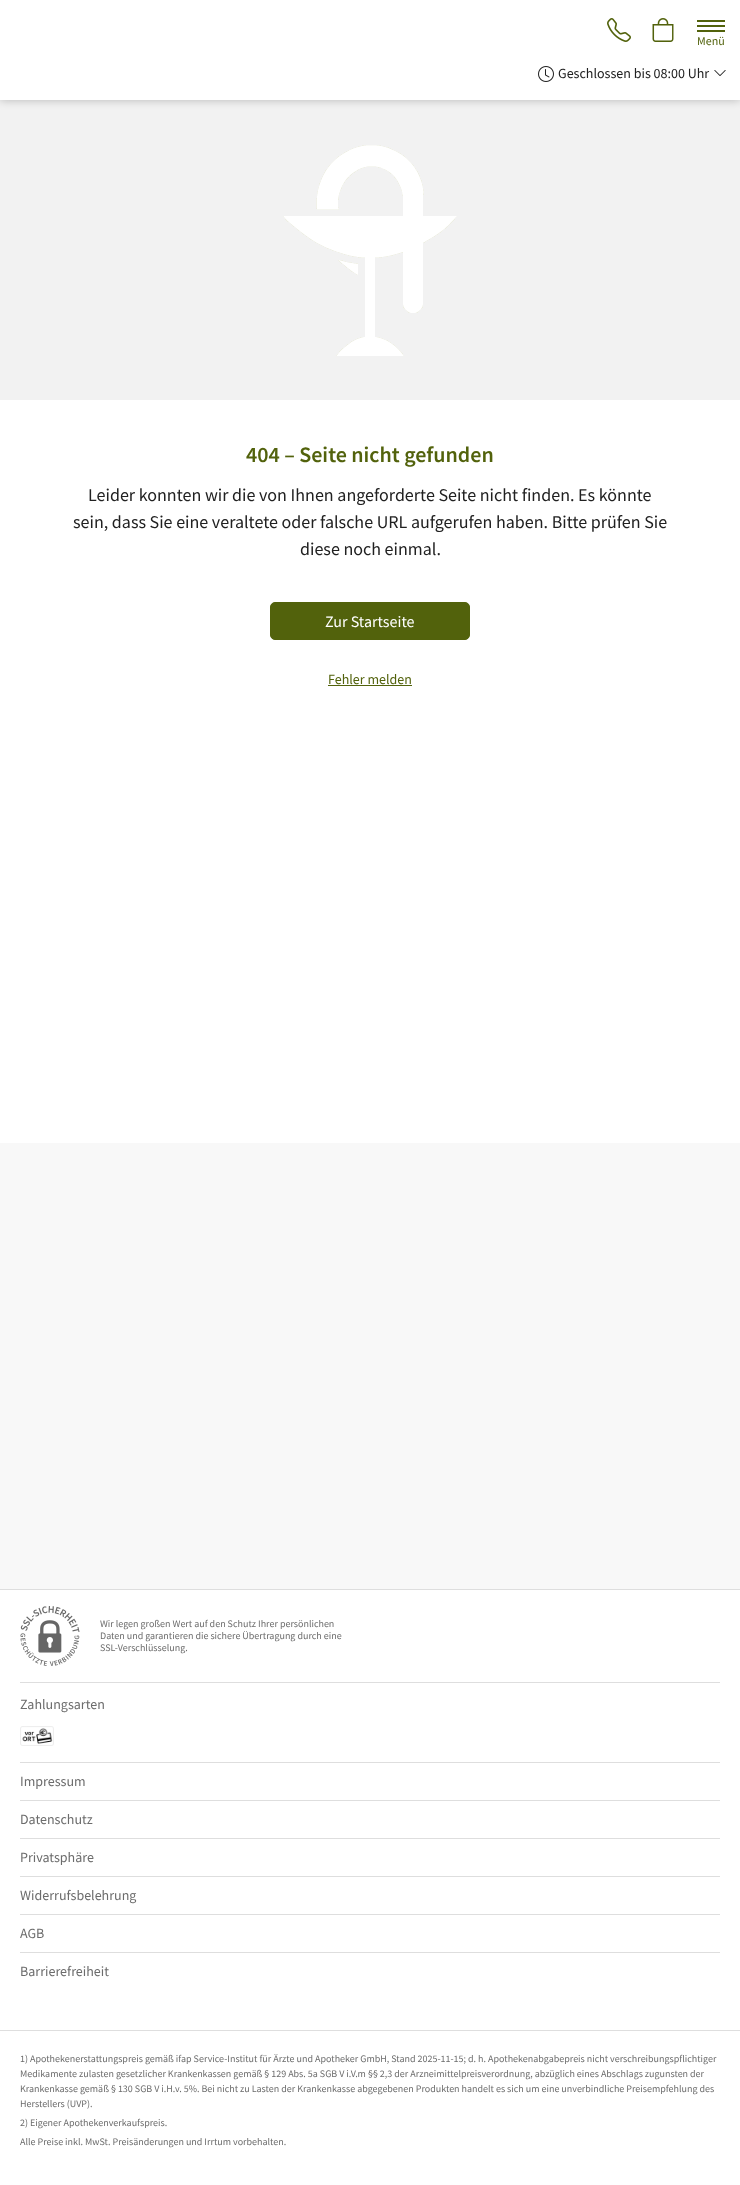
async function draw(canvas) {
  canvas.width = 740;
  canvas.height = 2185;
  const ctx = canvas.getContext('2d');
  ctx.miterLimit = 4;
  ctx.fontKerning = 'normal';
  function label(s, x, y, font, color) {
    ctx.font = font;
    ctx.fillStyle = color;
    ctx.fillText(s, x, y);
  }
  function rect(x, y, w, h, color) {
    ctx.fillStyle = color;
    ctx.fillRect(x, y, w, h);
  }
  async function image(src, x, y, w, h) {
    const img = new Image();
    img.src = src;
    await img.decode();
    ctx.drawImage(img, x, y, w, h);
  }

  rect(0, 0, 740, 2185, '#f8f8f8');
  rect(0, 100, 740, 300, '#f2f2f2');
  ctx.fillStyle = '#00000040';
  ctx.filter = 'blur(5px)';
  ctx.beginPath();
  ctx.rect(0, 0, 740, 100);
  ctx.fill();
  ctx.filter = 'none';
  rect(0, 0, 740, 100, '#fff');
  await image('assets/img1.png', 607, 18, 24, 24);
  await image('assets/img2.png', 652, 18, 22, 24);
  rect(697, 25, 28, 2, '#52620c');
  rect(697, 20, 28, 2, '#52620c');
  rect(697, 30, 28, 2, '#52620c');
  label('Menü', 697, 45, '12px Source Sans Pro', '#52620c');
  await image('assets/img3.png', 538, 66, 16, 16);
  label('Geschlossen bis 08:00 Uhr', 558, 78, '14px Source Sans Pro', '#212121');
  await image('assets/img4.png', 714, 70, 12, 6);
  rect(0, 400, 740, 743, '#fff');
  await image('assets/img5.png', 283, 145, 174, 211);
  label('404 – Seite nicht gefunden', 246, 462, '600 22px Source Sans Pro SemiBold', '#52620c');
  label('Leider konnten wir die von Ihnen angeforderte Seite nicht finden. Es könnte', 88, 501, '18px Source Sans Pro', '#212121');
  label('sein, dass Sie eine veraltete oder falsche URL aufgerufen haben. Bitte prüfen Sie', 73, 528, '18px Source Sans Pro', '#212121');
  label('diese noch einmal.', 300, 555, '18px Source Sans Pro', '#212121');
  ctx.fillStyle = '#52620c';
  ctx.beginPath();
  ctx.roundRect(270.5, 602.5, 199, 37, 4.5);
  ctx.fill();
  ctx.strokeStyle = '#52620c';
  ctx.stroke();
  label('Zur Startseite', 325, 627, '16px Source Sans Pro', '#fff');
  label('Fehler melden', 328, 684, '14px Source Sans Pro', '#52620c');
  rect(328, 685, 84, 1, '#52620c');
  rect(0, 1590, 740, 595, '#fff');
  rect(0, 1589, 740, 1, '#dedede');
  await image('assets/img6.png', 20, 1606, 60, 60);
  label('Wir legen großen Wert auf den Schutz Ihrer persönlichen', 100, 1627, '10px Source Sans Pro', '#6c6c6c');
  label('Daten und garantieren die sichere Übertragung durch eine', 100, 1639, '10px Source Sans Pro', '#6c6c6c');
  label('SSL-Verschlüsselung.', 100, 1651, '10px Source Sans Pro', '#6c6c6c');
  rect(20, 1682, 700, 1, '#dedede');
  label('Zahlungsarten', 20, 1709, '14px Source Sans Pro', '#6c6c6c');
  await image('assets/img7.png', 20, 1726, 34, 20);
  rect(20, 1762, 700, 1, '#dedede');
  label('Impressum', 20, 1786, '14px Source Sans Pro', '#6c6c6c');
  rect(20, 1800, 700, 1, '#dedede');
  label('Datenschutz', 20, 1824, '14px Source Sans Pro', '#6c6c6c');
  rect(20, 1838, 700, 1, '#dedede');
  label('Privatsphäre', 20, 1862, '14px Source Sans Pro', '#6c6c6c');
  rect(20, 1876, 700, 1, '#dedede');
  label('Widerrufsbelehrung', 20, 1900, '14px Source Sans Pro', '#6c6c6c');
  rect(20, 1914, 700, 1, '#dedede');
  label('AGB', 20, 1938, '14px Source Sans Pro', '#6c6c6c');
  rect(20, 1952, 700, 1, '#dedede');
  label('Barrierefreiheit', 20, 1976, '14px Source Sans Pro', '#6c6c6c');
  rect(0, 2030, 740, 1, '#dedede');
  label('1) Apothekenerstattungspreis gemäß ifap Service-Institut für Ärzte und Apotheker GmbH, Stand 2025-11-15; d. h. Apothekenabgabepreis nicht verschreibungspflichtiger', 20, 2062, '10px Source Sans Pro', '#6c6c6c');
  label('Medikamente zulasten gesetzlicher Krankenkassen gemäß § 129 Abs. 5a SGB V i.V.m §§ 2,3 der Arzneimittelpreisverordnung, abzüglich eines Abschlags zugunsten der', 20, 2077, '10px Source Sans Pro', '#6c6c6c');
  label('Krankenkasse gemäß § 130 SGB V i.H.v. 5%. Bei nicht zu Lasten der Krankenkasse abgegebenen Produkten handelt es sich um eine unverbindliche Preisempfehlung des', 20, 2092, '10px Source Sans Pro', '#6c6c6c');
  label('Herstellers (UVP).', 20, 2107, '10px Source Sans Pro', '#6c6c6c');
  label('2) Eigener Apothekenverkaufspreis.', 20, 2126, '10px Source Sans Pro', '#6c6c6c');
  label('Alle Preise inkl. MwSt. Preisänderungen und Irrtum vorbehalten.', 20, 2145, '10px Source Sans Pro', '#6c6c6c');
}

draw(document.querySelector('canvas'));
